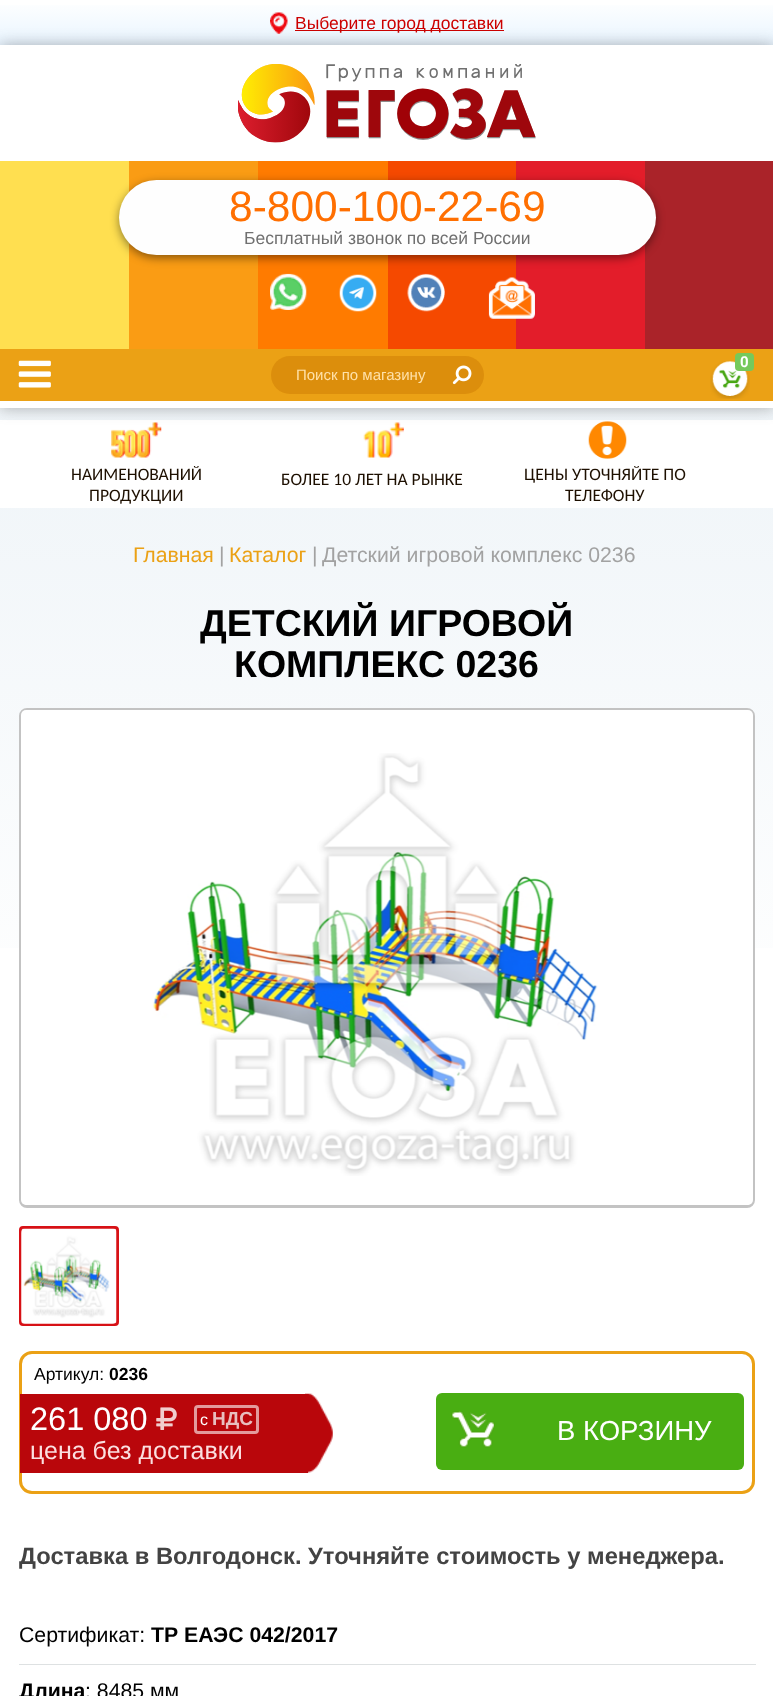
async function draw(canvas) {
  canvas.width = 773;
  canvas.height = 1696;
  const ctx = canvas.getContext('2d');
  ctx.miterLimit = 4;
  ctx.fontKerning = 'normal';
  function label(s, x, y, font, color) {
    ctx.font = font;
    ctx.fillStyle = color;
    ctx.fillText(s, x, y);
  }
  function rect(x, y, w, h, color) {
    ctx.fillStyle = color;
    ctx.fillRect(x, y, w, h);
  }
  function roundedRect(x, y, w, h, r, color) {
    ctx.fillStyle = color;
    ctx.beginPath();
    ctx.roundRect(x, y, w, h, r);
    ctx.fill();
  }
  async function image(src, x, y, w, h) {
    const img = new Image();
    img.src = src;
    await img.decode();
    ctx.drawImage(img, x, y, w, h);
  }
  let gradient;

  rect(0, 0, 773, 1696, '#fff');
  gradient = ctx.createLinearGradient(387, 0, 387, 45);
  gradient.addColorStop(0, '#fff');
  gradient.addColorStop(1, '#e9f5ff');
  ctx.fillStyle = gradient;
  ctx.fillRect(0, 5, 773, 40);
  await image('assets/img1.png', 270, 12, 18, 22);
  rect(295, 30, 209, 1, '#c00');
  label('Выберите город доставки', 295, 29, '17.5px Liberation Sans', '#c00');
  gradient = ctx.createLinearGradient(387, 204, 387, 1048);
  gradient.addColorStop(0, '#eaf1f6');
  gradient.addColorStop(1, '#fff');
  ctx.fillStyle = gradient;
  ctx.fillRect(0, 408, 773, 540);
  rect(0, 420, 773, 88, '#fff');
  await image('assets/img10.png', 111, 422, 51, 36);
  await image('assets/img11.png', 363, 422, 41, 36);
  await image('assets/img12.png', 588, 421, 39, 38);
  ctx.fillStyle = '#40404066';
  ctx.filter = 'blur(7.5px)';
  ctx.beginPath();
  ctx.rect(0, 45, 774, 363);
  ctx.fill();
  ctx.filter = 'none';
  rect(0, 45, 773, 363, '#fff');
  await image('assets/img2.png', 238, 64, 298, 79);
  rect(0, 161, 129, 188, '#ffdf50');
  rect(129, 161, 129, 188, '#fa9c14');
  rect(258, 161, 130, 188, '#ff7b00');
  rect(388, 161, 128, 188, '#f54900');
  rect(516, 161, 129, 188, '#e31d2a');
  rect(645, 161, 128, 188, '#aa2329');
  ctx.fillStyle = '#00000073';
  ctx.filter = 'blur(5px)';
  ctx.beginPath();
  ctx.roundRect(119, 183, 537, 75, 37.5);
  ctx.fill();
  ctx.filter = 'none';
  roundedRect(119, 180, 537, 75, 37.5, '#fefefe');
  label('8-800-100-22-69', 229, 221, '42.5px Liberation Sans', '#ff6f01');
  label('Бесплатный звонок по всей России', 244, 244, '17.5px Liberation Sans', '#707070');
  await image('assets/img3.png', 270, 273, 37, 37);
  await image('assets/img4.png', 339, 274, 38, 38);
  await image('assets/img5.png', 407, 273, 38, 39);
  await image('assets/img6.png', 488, 277, 47, 42);
  rect(0, 349, 773, 52, '#eba115');
  await image('assets/img7.png', 18, 360, 33, 28);
  await image('assets/img8.png', 710, 361, 40, 38);
  roundedRect(735, 353, 19, 18, 4, '#75c95b');
  label('0', 740, 367, 'bold 15px Roboto', '#fff');
  roundedRect(271, 356, 213, 38, 19, '#dc8e0c');
  label('Поиск по магазину', 296, 380, '15px Liberation Sans', '#ffe1a9');
  await image('assets/img9.png', 452, 365, 20, 20);
  label('НАИМЕНОВАНИЙ', 71, 480, '17.5px Carlito', '#1d0f00');
  label('ПРОДУКЦИИ', 89, 501, '17.5px Carlito', '#1d0f00');
  label('БОЛЕЕ 10 ЛЕТ НА РЫНКЕ', 281, 485, '17.5px Carlito', '#1d0f00');
  label('ЦЕНЫ УТОЧНЯЙТЕ ПО', 524, 480, '17.5px Carlito', '#1d0f00');
  label('ТЕЛЕФОНУ', 565, 501, '17.5px Carlito', '#1d0f00');
  label('Главная', 133, 562, '21.25px Liberation Sans', '#eba115');
  label('|', 219, 562, '21.25px Liberation Sans', '#a2a2a2');
  label('Каталог', 229, 562, '21.25px Liberation Sans', '#eba115');
  label('|', 312, 562, '21.25px Liberation Sans', '#a2a2a2');
  label('Детский игровой комплекс 0236', 322, 562, '21.25px Liberation Sans', '#a2a2a2');
  label('ДЕТСКИЙ ИГРОВОЙ', 200, 636, 'bold 37.5px Liberation Sans', '#000');
  label('КОМПЛЕКС 0236', 234, 677, 'bold 37.5px Liberation Sans', '#000');
  ctx.beginPath();
  ctx.roundRect(20.5, 709.5, 733, 497, 6.5);
  ctx.strokeStyle = '#c3c3c3';
  ctx.lineWidth = 3;
  ctx.stroke();
  roundedRect(21, 710, 732, 495, 5, '#fff');
  await image('assets/img13.png', 152, 753, 446, 423);
  ctx.beginPath();
  ctx.roundRect(20.5, 1227.5, 97, 97, 2.5);
  ctx.strokeStyle = '#d71116';
  ctx.stroke();
  await image('assets/img14.png', 21, 1228, 96, 96);
  ctx.beginPath();
  ctx.roundRect(20.5, 1352.5, 733, 140, 11.5);
  ctx.strokeStyle = '#eba115';
  ctx.stroke();
  label('Артикул:', 34, 1380, '17.5px Liberation Sans', '#000');
  label('0236', 109, 1380, 'bold 17.5px Liberation Sans', '#000');
  rect(20, 1394, 288, 79, '#b9060b');
  label('261 080', 30, 1430, '32.5px Liberation Sans', '#fff');
  await image('assets/img15.png', 156, 1407, 21, 23);
  ctx.beginPath();
  ctx.roundRect(195.5, 1406.5, 62, 26, 2.5);
  ctx.strokeStyle = '#e39b9d';
  ctx.stroke();
  label('с', 200, 1425, '16px Liberation Sans', '#fff');
  label('НДС', 212, 1425, 'bold 19px Liberation Sans', '#e8bebf');
  await image('assets/img16.png', 305, 1393, 28, 80);
  label('цена без доставки', 30, 1459, '25px Liberation Sans', '#fbdfe0');
  roundedRect(436, 1393, 308, 77, 6, '#49ae12');
  await image('assets/img17.png', 451, 1411, 44, 37);
  label('В КОРЗИНУ', 557, 1440, '27.5px Liberation Sans', '#fff');
  label('Доставка в Волгодонск. Уточняйте стоимость у менеджера.', 19, 1564, 'bold 23.75px Liberation Sans', '#434343');
  rect(19, 1664, 737, 1, '#dee1e2');
  label('Сертификат:', 19, 1642, '21.25px Liberation Sans', '#000');
  label('ТР ЕАЭС 042/2017', 151, 1642, 'bold 21.25px Liberation Sans', '#000');
  label('Длина', 19, 1698, 'bold 21.25px Liberation Sans', '#000');
  label(': 8485 мм', 85, 1698, '21.25px Liberation Sans', '#000');
}

draw(document.querySelector('canvas'));
